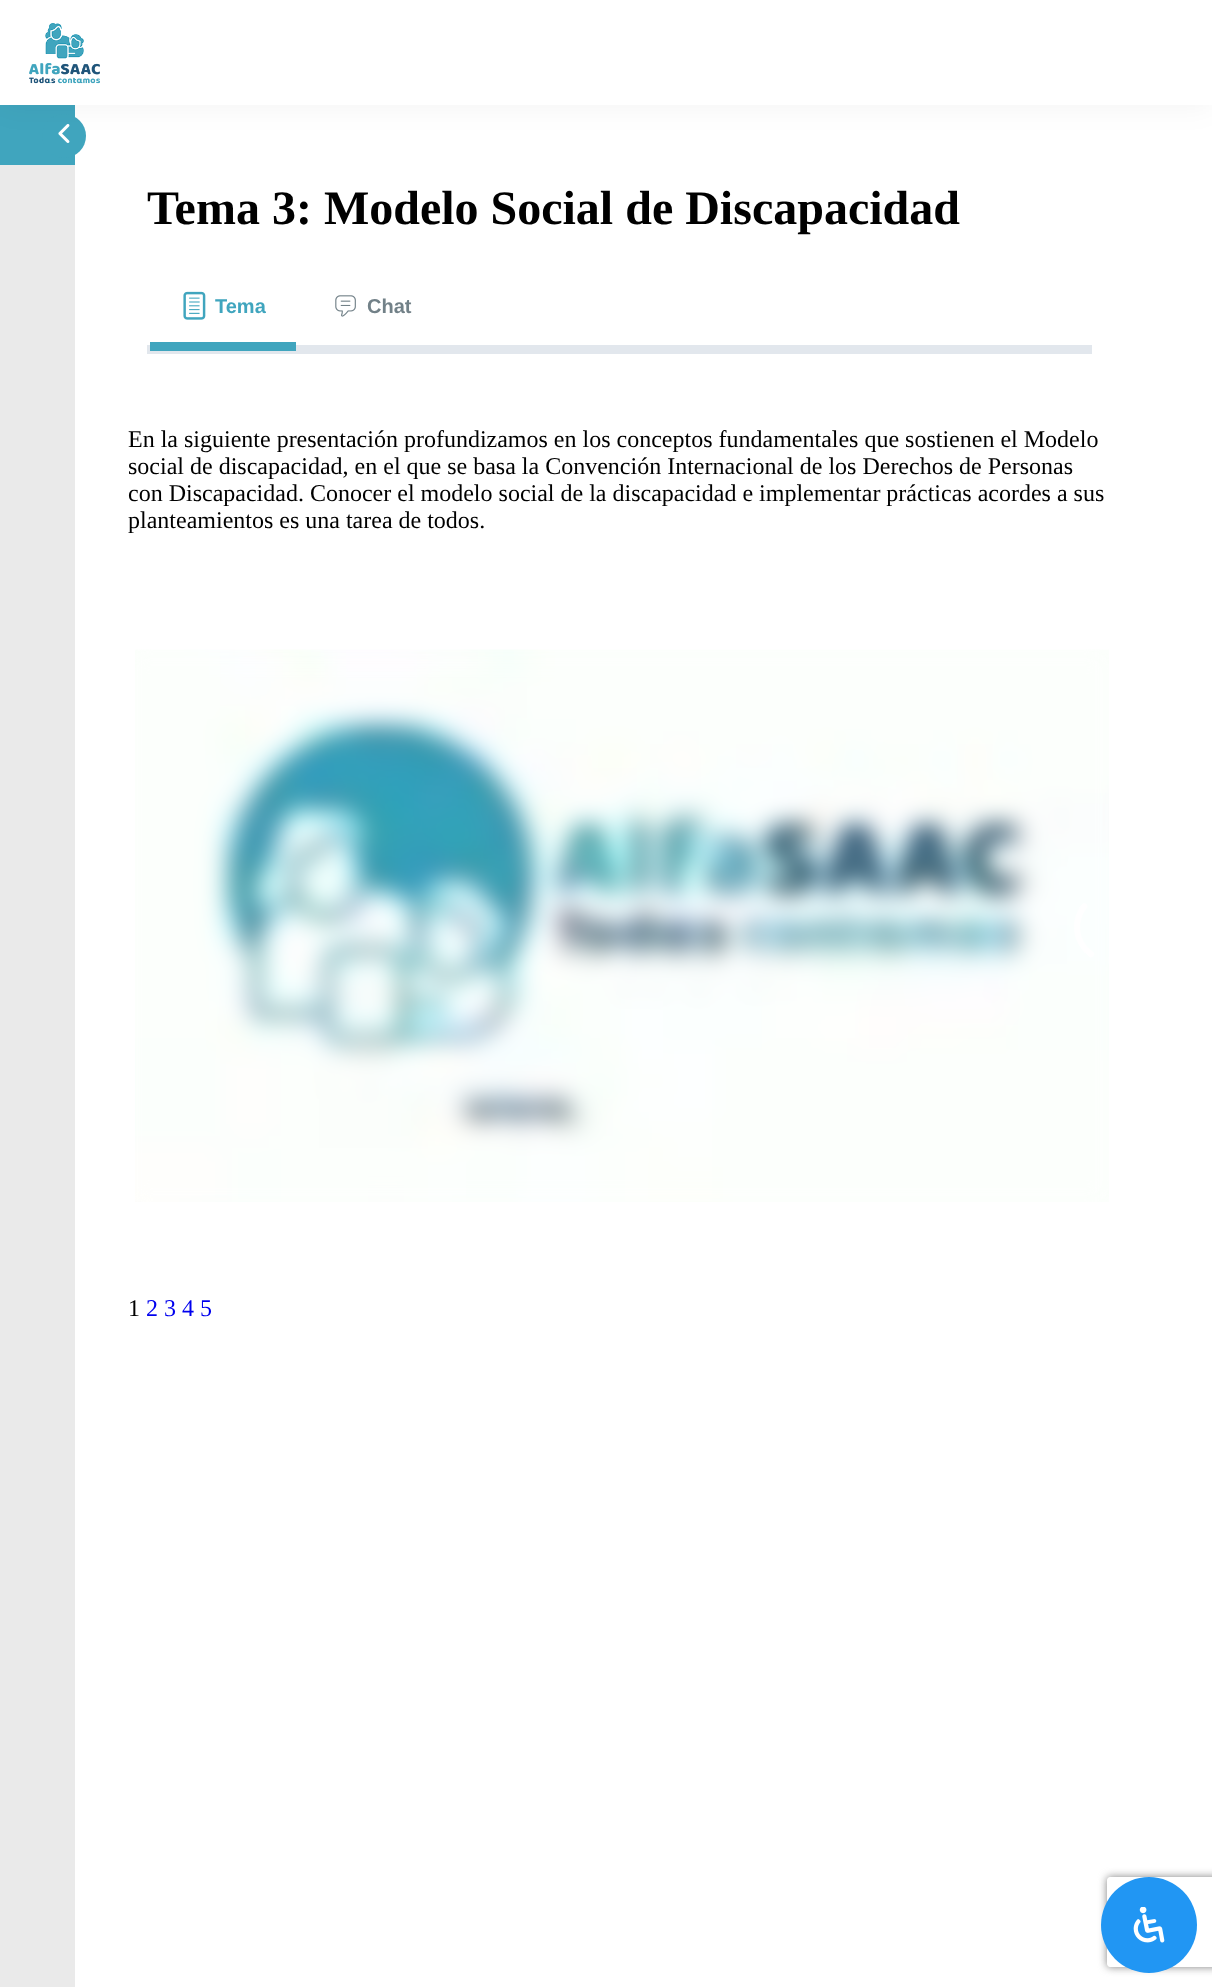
async function draw(canvas) {
  canvas.width = 1212;
  canvas.height = 1987;
  const ctx = canvas.getContext('2d');
  ctx.miterLimit = 4;
  ctx.fontKerning = 'normal';
  function label(s, x, y, font, color) {
    ctx.font = font;
    ctx.fillStyle = color;
    ctx.fillText(s, x, y);
  }
  function rect(x, y, w, h, color) {
    ctx.fillStyle = color;
    ctx.fillRect(x, y, w, h);
  }
  async function image(src, x, y, w, h) {
    const img = new Image();
    img.src = src;
    await img.decode();
    ctx.drawImage(img, x, y, w, h);
  }
  let path;

  rect(0, 0, 1212, 1987, '#fff');
  rect(0, 165, 75, 1822, '#eaeaea');
  rect(0, 105, 75, 60, '#40a5be');
  ctx.beginPath();
  ctx.arc(64, 136, 22, 0, 2 * Math.PI);
  ctx.fill();
  await image('assets/img1.png', 58, 124, 12, 19);
  ctx.fillStyle = '#0000000d';
  ctx.filter = 'blur(15px)';
  ctx.beginPath();
  ctx.rect(0, 0, 1212, 105);
  ctx.fill();
  ctx.filter = 'none';
  rect(0, 0, 1212, 105, '#fff');
  await image('assets/img2.png', 29, 23, 71, 61);
  label('Tema 3: Modelo Social de Discapacidad', 147, 224, 'bold 48px Liberation Serif', '#000');
  await image('assets/img3.png', 183, 291, 23, 29);
  label('Tema', 215, 313, 'bold 20px Liberation Sans', '#40a5be');
  rect(147, 345, 945, 9, '#e2e7ed');
  rect(150, 342, 146, 9, '#40a5be');
  await image('assets/img4.png', 335, 295, 21, 22);
  label('Chat', 367, 313, 'bold 20px Liberation Sans', '#728188');
  label('En la siguiente presentación profundizamos en los conceptos fundamentales que sostienen el Modelo', 128, 447, '24px Liberation Serif', '#000');
  label('social de discapacidad, en el que se basa la Convención Internacional de los Derechos de Personas', 128, 474, '24px Liberation Serif', '#000');
  label('con Discapacidad. Conocer el modelo social de la discapacidad e implementar prácticas acordes a sus', 128, 501, '24px Liberation Serif', '#000');
  label('planteamientos es una tarea de todos.', 128, 528, '24px Liberation Serif', '#000');
  await image('assets/img5.png', 135, 649, 974, 553);
  label('1', 128, 1316, '24px Liberation Serif', '#000');
  label('2 3 4 5', 146, 1316, '24px Liberation Serif', '#00e');
  ctx.save();
  path = new Path2D('M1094 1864H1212V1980H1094ZM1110 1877H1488C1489.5 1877 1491 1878.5 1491 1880V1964C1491 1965.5 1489.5 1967 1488 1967H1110C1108.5 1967 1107 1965.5 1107 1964V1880C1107 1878.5 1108.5 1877 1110 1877Z');
  ctx.clip(path, 'evenodd');
  ctx.fillStyle = '#808080';
  ctx.filter = 'blur(4px)';
  ctx.beginPath();
  ctx.roundRect(1107, 1877, 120, 90, 3);
  ctx.fill();
  ctx.filter = 'none';
  ctx.restore();
  ctx.fillStyle = '#2196f3';
  ctx.beginPath();
  ctx.arc(1149, 1925, 48, 0, 2 * Math.PI);
  ctx.fill();
  await image('assets/img6.png', 1133, 1907, 32, 36);
}

draw(document.querySelector('canvas'));
